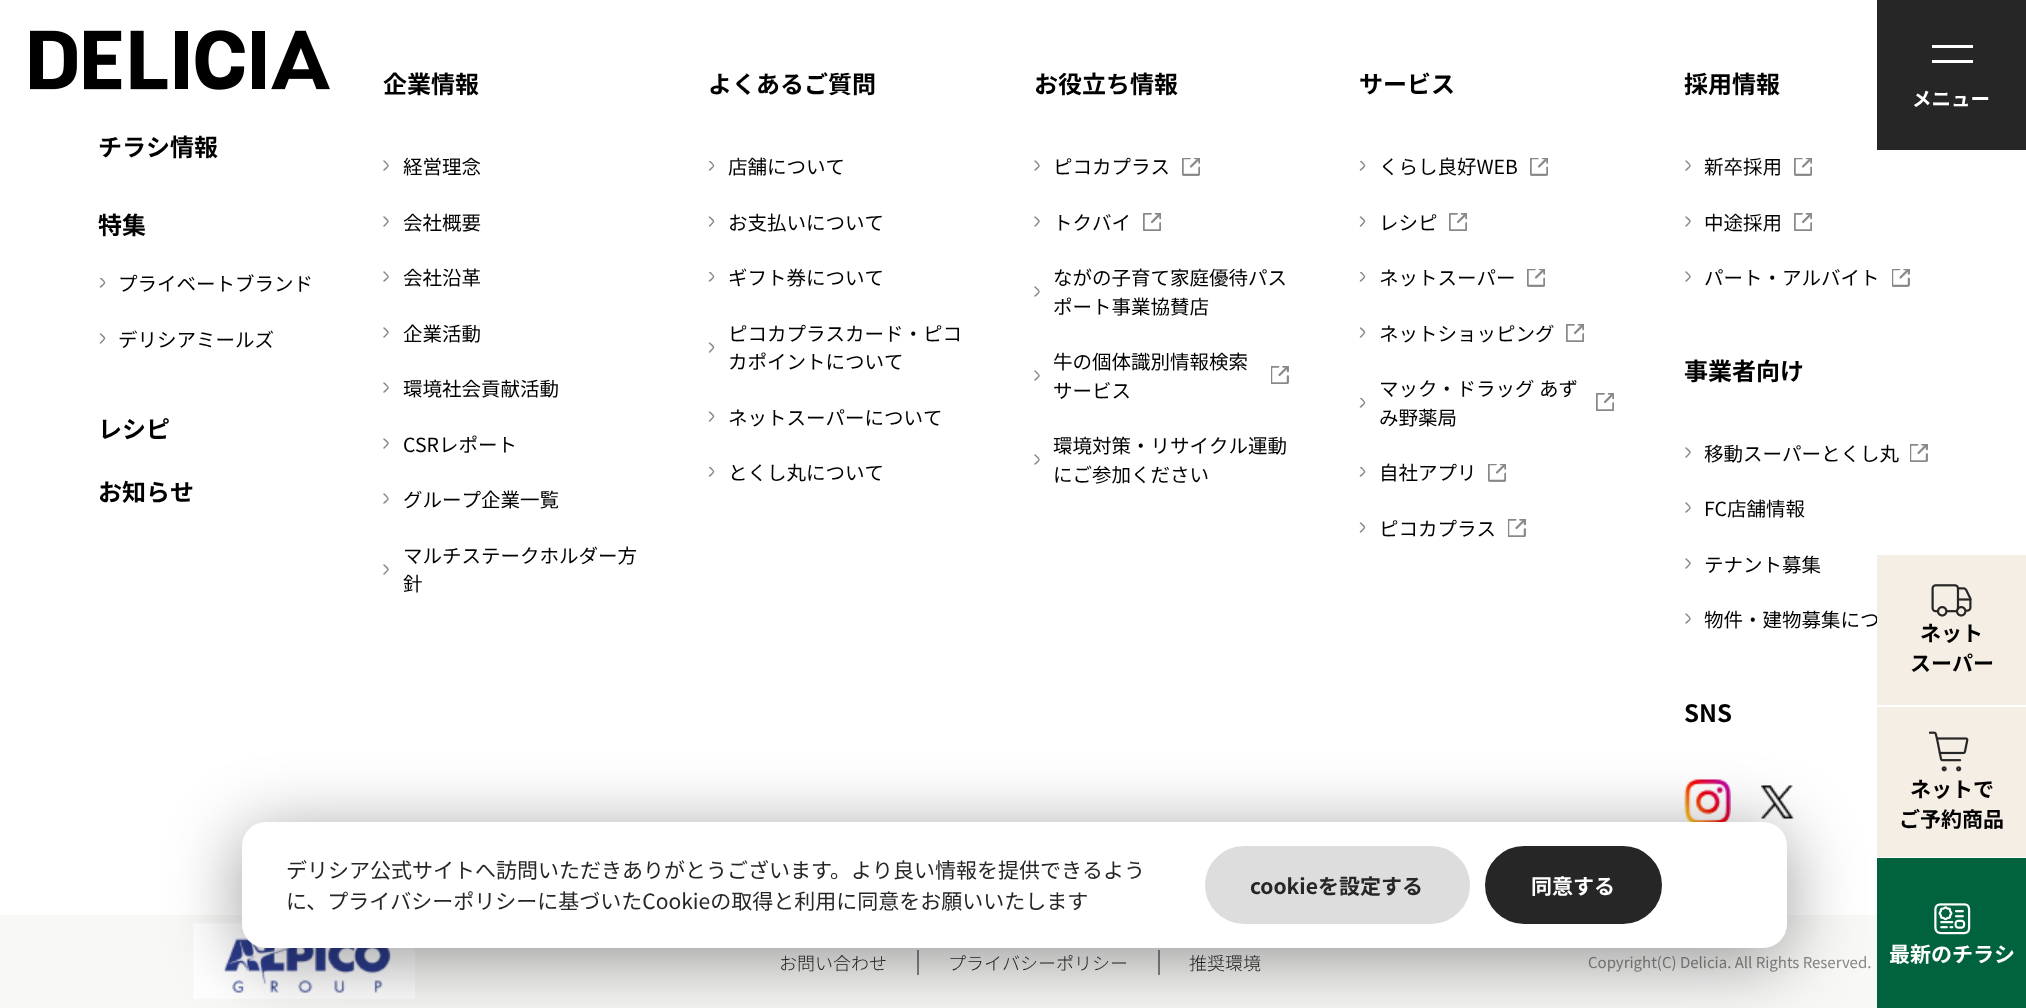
async function draw(canvas) {
  canvas.width = 2026;
  canvas.height = 1008;
  const ctx = canvas.getContext('2d');
  ctx.miterLimit = 4;
  ctx.fontKerning = 'normal';
  function label(s, x, y, font, color) {
    ctx.font = font;
    ctx.fillStyle = color;
    ctx.fillText(s, x, y);
  }
  function rect(x, y, w, h, color) {
    ctx.fillStyle = color;
    ctx.fillRect(x, y, w, h);
  }
  function roundedRect(x, y, w, h, r, color) {
    ctx.fillStyle = color;
    ctx.beginPath();
    ctx.roundRect(x, y, w, h, r);
    ctx.fill();
  }
  async function image(src, x, y, w, h) {
    const img = new Image();
    img.src = src;
    await img.decode();
    ctx.drawImage(img, x, y, w, h);
  }
  let path;

  rect(0, 0, 2026, 1008, '#fff');
  await image('assets/img1.png', 30, 30, 300, 60);
  label('チラシ情報', 98, 156, 'bold 24px Noto Sans JP', '#000');
  label('特集', 98, 234, 'bold 24px Noto Sans JP', '#000');
  ctx.save();
  ctx.beginPath();
  ctx.rect(99, 278, 8, 10);
  ctx.clip();
  path = new Path2D('M100.5 287C106 282 106 283.5 100.5 278');
  ctx.strokeStyle = '#888';
  ctx.lineWidth = 1.5;
  ctx.lineCap = 'round';
  ctx.lineJoin = 'round';
  ctx.stroke(path);
  ctx.restore();
  label('プライベートブランド', 118, 291, '19.5px Noto Sans JP', '#000');
  path = new Path2D('M100.5 343C106 337.5 106 339 100.5 334');
  ctx.strokeStyle = '#888';
  ctx.lineWidth = 1.5;
  ctx.lineCap = 'round';
  ctx.lineJoin = 'round';
  ctx.stroke(path);
  label('デリシアミールズ', 118, 347, '19.5px Noto Sans JP', '#000');
  label('レシピ', 98, 438, 'bold 24px Noto Sans JP', '#000');
  label('お知らせ', 98, 501, 'bold 24px Noto Sans JP', '#000');
  label('企業情報', 383, 93, 'bold 24px Noto Sans JP', '#000');
  path = new Path2D('M384 170C389.5 165 389.5 166.5 384 161');
  ctx.stroke(path);
  label('経営理念', 403, 174, '19.5px Noto Sans JP', '#000');
  path = new Path2D('M384 226C389.5 220.5 389.5 222 384 217');
  ctx.stroke(path);
  label('会社概要', 403, 230, '19.5px Noto Sans JP', '#000');
  path = new Path2D('M384 281C389.5 276 389.5 277.5 384 272');
  ctx.stroke(path);
  label('会社沿革', 403, 285, '19.5px Noto Sans JP', '#000');
  path = new Path2D('M384 337C389.5 331.5 389.5 333 384 328');
  ctx.stroke(path);
  label('企業活動', 403, 341, '19.5px Noto Sans JP', '#000');
  path = new Path2D('M384 392C389.5 387 389.5 388.5 384 383');
  ctx.stroke(path);
  label('環境社会貢献活動', 403, 396, '19.5px Noto Sans JP', '#000');
  path = new Path2D('M384 448C389.5 442.5 389.5 444 384 439');
  ctx.stroke(path);
  label('CSRレポート', 403, 452, '19.5px Noto Sans JP', '#000');
  path = new Path2D('M384 503C389.5 498 389.5 499.5 384 494');
  ctx.stroke(path);
  label('グループ企業一覧', 403, 507, '19.5px Noto Sans JP', '#000');
  label('マルチステークホルダー方', 403, 563, '19.5px Noto Sans JP', '#000');
  path = new Path2D('M384 574C389.5 568.5 389.5 570 384 565');
  ctx.stroke(path);
  label('針', 403, 591, '19.5px Noto Sans JP', '#000');
  label('よくあるご質問', 708, 93, 'bold 24px Noto Sans JP', '#000');
  ctx.save();
  ctx.beginPath();
  ctx.rect(708, 161, 8, 10);
  ctx.clip();
  path = new Path2D('M709.5 170C715 165 715 166.5 709.5 161');
  ctx.stroke(path);
  ctx.restore();
  label('店舗について', 728, 174, '19.5px Noto Sans JP', '#000');
  path = new Path2D('M709.5 226C715 220.5 715 222 709.5 217');
  ctx.stroke(path);
  label('お支払いについて', 728, 230, '19.5px Noto Sans JP', '#000');
  ctx.save();
  ctx.beginPath();
  ctx.rect(708, 272, 8, 10);
  ctx.clip();
  path = new Path2D('M709.5 281C715 276 715 277.5 709.5 272');
  ctx.stroke(path);
  ctx.restore();
  label('ギフト券について', 728, 285, '19.5px Noto Sans JP', '#000');
  label('ピコカプラスカード・ピコ', 728, 341, '19.5px Noto Sans JP', '#000');
  path = new Path2D('M709.5 352C715 346.5 715 348 709.5 343');
  ctx.stroke(path);
  label('カポイントについて', 728, 369, '19.5px Noto Sans JP', '#000');
  path = new Path2D('M709.5 421C715 415.5 715 417 709.5 412');
  ctx.stroke(path);
  label('ネットスーパーについて', 728, 425, '19.5px Noto Sans JP', '#000');
  ctx.save();
  ctx.beginPath();
  ctx.rect(708, 467, 8, 10);
  ctx.clip();
  path = new Path2D('M709.5 476C715 471 715 472.5 709.5 467');
  ctx.stroke(path);
  ctx.restore();
  label('とくし丸について', 728, 480, '19.5px Noto Sans JP', '#000');
  label('お役立ち情報', 1034, 93, 'bold 24px Noto Sans JP', '#000');
  path = new Path2D('M1035 170C1040.5 165 1040.5 166.5 1035 161');
  ctx.stroke(path);
  label('ピコカプラス', 1053, 174, '19.5px Noto Sans JP', '#000');
  await image('assets/img2.png', 1182, 158, 18, 18);
  path = new Path2D('M1035 226C1040.5 220.5 1040.5 222 1035 217');
  ctx.stroke(path);
  label('トクバイ', 1053, 230, '19.5px Noto Sans JP', '#000');
  await image('assets/img3.png', 1143, 213, 18, 18);
  label('ながの子育て家庭優待パス', 1053, 285, '19.5px Noto Sans JP', '#000');
  path = new Path2D('M1035 296C1040.5 291 1040.5 292.5 1035 287');
  ctx.stroke(path);
  label('ポート事業協賛店', 1053, 314, '19.5px Noto Sans JP', '#000');
  label('牛の個体識別情報検索', 1053, 369, '19.5px Noto Sans JP', '#000');
  path = new Path2D('M1035 380C1040.5 375 1040.5 376.5 1035 371');
  ctx.stroke(path);
  await image('assets/img4.png', 1271, 366, 18, 18);
  label('サービス', 1053, 398, '19.5px Noto Sans JP', '#000');
  label('環境対策・リサイクル運動', 1053, 453, '19.5px Noto Sans JP', '#000');
  path = new Path2D('M1035 464C1040.5 459 1040.5 460.5 1035 455');
  ctx.stroke(path);
  label('にご参加ください', 1053, 482, '19.5px Noto Sans JP', '#000');
  label('サービス', 1359, 93, 'bold 24px Noto Sans JP', '#000');
  ctx.save();
  ctx.beginPath();
  ctx.rect(1359, 161, 8, 10);
  ctx.clip();
  path = new Path2D('M1360.5 170C1366 165 1366 166.5 1360.5 161');
  ctx.stroke(path);
  ctx.restore();
  label('くらし良好WEB', 1379, 174, '19.5px Noto Sans JP', '#000');
  await image('assets/img2.png', 1530, 158, 18, 18);
  path = new Path2D('M1360.5 226C1366 220.5 1366 222 1360.5 217');
  ctx.stroke(path);
  label('レシピ', 1379, 230, '19.5px Noto Sans JP', '#000');
  await image('assets/img3.png', 1449, 213, 18, 18);
  ctx.save();
  ctx.beginPath();
  ctx.rect(1359, 272, 8, 10);
  ctx.clip();
  path = new Path2D('M1360.5 281C1366 276 1366 277.5 1360.5 272');
  ctx.stroke(path);
  ctx.restore();
  label('ネットスーパー', 1379, 285, '19.5px Noto Sans JP', '#000');
  await image('assets/img2.png', 1527, 269, 18, 18);
  path = new Path2D('M1360.5 337C1366 331.5 1366 333 1360.5 328');
  ctx.stroke(path);
  label('ネットショッピング', 1379, 341, '19.5px Noto Sans JP', '#000');
  await image('assets/img3.png', 1566, 324, 18, 18);
  label('マック・ドラッグ あず', 1379, 396, '19.5px Noto Sans JP', '#000');
  ctx.save();
  ctx.beginPath();
  ctx.rect(1359, 398, 8, 10);
  ctx.clip();
  path = new Path2D('M1360.5 407C1366 402 1366 403.5 1360.5 398');
  ctx.stroke(path);
  ctx.restore();
  await image('assets/img3.png', 1596, 393, 18, 18);
  label('み野薬局', 1379, 425, '19.5px Noto Sans JP', '#000');
  ctx.save();
  ctx.beginPath();
  ctx.rect(1359, 467, 8, 10);
  ctx.clip();
  path = new Path2D('M1360.5 476C1366 471 1366 472.5 1360.5 467');
  ctx.stroke(path);
  ctx.restore();
  label('自社アプリ', 1379, 480, '19.5px Noto Sans JP', '#000');
  await image('assets/img2.png', 1488, 464, 18, 18);
  path = new Path2D('M1360.5 532C1366 526.5 1366 528 1360.5 523');
  ctx.stroke(path);
  label('ピコカプラス', 1379, 536, '19.5px Noto Sans JP', '#000');
  await image('assets/img4.png', 1508, 519, 18, 18);
  label('採用情報', 1684, 93, 'bold 24px Noto Sans JP', '#000');
  path = new Path2D('M1686 170C1691.5 165 1691.5 166.5 1686 161');
  ctx.stroke(path);
  label('新卒採用', 1704, 174, '19.5px Noto Sans JP', '#000');
  await image('assets/img2.png', 1794, 158, 18, 18);
  path = new Path2D('M1686 226C1691.5 220.5 1691.5 222 1686 217');
  ctx.stroke(path);
  label('中途採用', 1704, 230, '19.5px Noto Sans JP', '#000');
  await image('assets/img3.png', 1794, 213, 18, 18);
  path = new Path2D('M1686 281C1691.5 276 1691.5 277.5 1686 272');
  ctx.stroke(path);
  label('パート・アルバイト', 1704, 285, '19.5px Noto Sans JP', '#000');
  await image('assets/img5.png', 1892, 269, 18, 18);
  label('事業者向け', 1684, 380, 'bold 24px Noto Sans JP', '#000');
  path = new Path2D('M1686 457C1691.5 451.5 1691.5 453 1686 448');
  ctx.stroke(path);
  label('移動スーパーとくし丸', 1704, 461, '19.5px Noto Sans JP', '#000');
  await image('assets/img4.png', 1910, 444, 18, 18);
  path = new Path2D('M1686 512C1691.5 507 1691.5 508.5 1686 503');
  ctx.stroke(path);
  label('FC店舗情報', 1704, 516, '19.5px Noto Sans JP', '#000');
  path = new Path2D('M1686 568C1691.5 562.5 1691.5 564 1686 559');
  ctx.stroke(path);
  label('テナント募集', 1704, 572, '19.5px Noto Sans JP', '#000');
  path = new Path2D('M1686 623C1691.5 618 1691.5 619.5 1686 614');
  ctx.stroke(path);
  label('物件・建物募集につ', 1704, 627, '19.5px Noto Sans JP', '#000');
  label('SNS', 1684, 722, 'bold 24px Noto Sans JP', '#000');
  await image('assets/img6.png', 1684, 779, 47, 43);
  await image('assets/img7.png', 1761, 785, 33, 34);
  rect(0, 915, 1877, 93, '#f8f8f7');
  await image('assets/img8.png', 193, 923, 222, 76);
  rect(917, 950, 2, 25, '#888');
  label('お問い合わせ', 779, 970, '300 18px Noto Sans JP', '#262626');
  rect(1158, 950, 2, 25, '#888');
  label('プライバシーポリシー', 948, 970, '300 18px Noto Sans JP', '#262626');
  label('推奨環境', 1189, 970, '300 18px Noto Sans JP', '#262626');
  label('Copyright(C) Delicia. All Rights Reserved.', 1588, 968, '15px Noto Sans JP', '#888');
  rect(1877, 0, 149, 150, '#262626');
  rect(1932, 45, 41, 3, '#fff');
  rect(1932, 60, 41, 3, '#fff');
  label('メニュー', 1912, 106, 'bold 19.5px Noto Sans JP', '#fff');
  rect(1877, 707, 149, 150, '#f4eee5');
  rect(1877, 858, 149, 150, '#00633d');
  ctx.fillStyle = '#00000066';
  ctx.filter = 'blur(36px)';
  ctx.beginPath();
  ctx.roundRect(242, 834, 1545, 126, 24);
  ctx.fill();
  ctx.filter = 'none';
  roundedRect(242, 822, 1545, 126, 24, '#fff');
  label('デリシア公式サイトへ訪問いただきありがとうございます。より良い情報を提供できるよう', 286, 878, '21px Noto Sans JP', '#262626');
  label('に、プライバシーポリシーに基づいたCookieの取得と利用に同意をお願いいたします', 286, 909, '21px Noto Sans JP', '#262626');
  ctx.fillStyle = '#ddd';
  ctx.beginPath();
  ctx.roundRect(1206, 847, 263, 76, 38);
  ctx.fill();
  ctx.strokeStyle = '#ddd';
  ctx.lineWidth = 2;
  ctx.lineJoin = 'miter';
  ctx.stroke();
  label('cookieを設定する', 1250, 894, 'bold 21px Noto Sans JP', '#262626');
  ctx.beginPath();
  ctx.roundRect(1486, 847, 175, 76, 38);
  ctx.fill();
  ctx.strokeStyle = '#262626';
  ctx.stroke();
  label('同意する', 1531, 894, 'bold 21px Noto Sans JP', '#fff');
  rect(1877, 555, 149, 150, '#f4eee5');
  await image('assets/img9.png', 1931, 584, 41, 33);
  label('ネット', 1920, 641, 'bold 21px Noto Sans JP', '#000');
  label('スーパー', 1910, 671, 'bold 21px Noto Sans JP', '#000');
  await image('assets/img10.png', 1929, 731, 40, 41);
  label('ネットで', 1910, 797, 'bold 21px Noto Sans JP', '#000');
  label('ご予約商品', 1899, 827, 'bold 21px Noto Sans JP', '#000');
  await image('assets/img11.png', 1934, 903, 37, 32);
  label('最新のチラシ', 1889, 962, 'bold 21px Noto Sans JP', '#fff');
}

draw(document.querySelector('canvas'));
